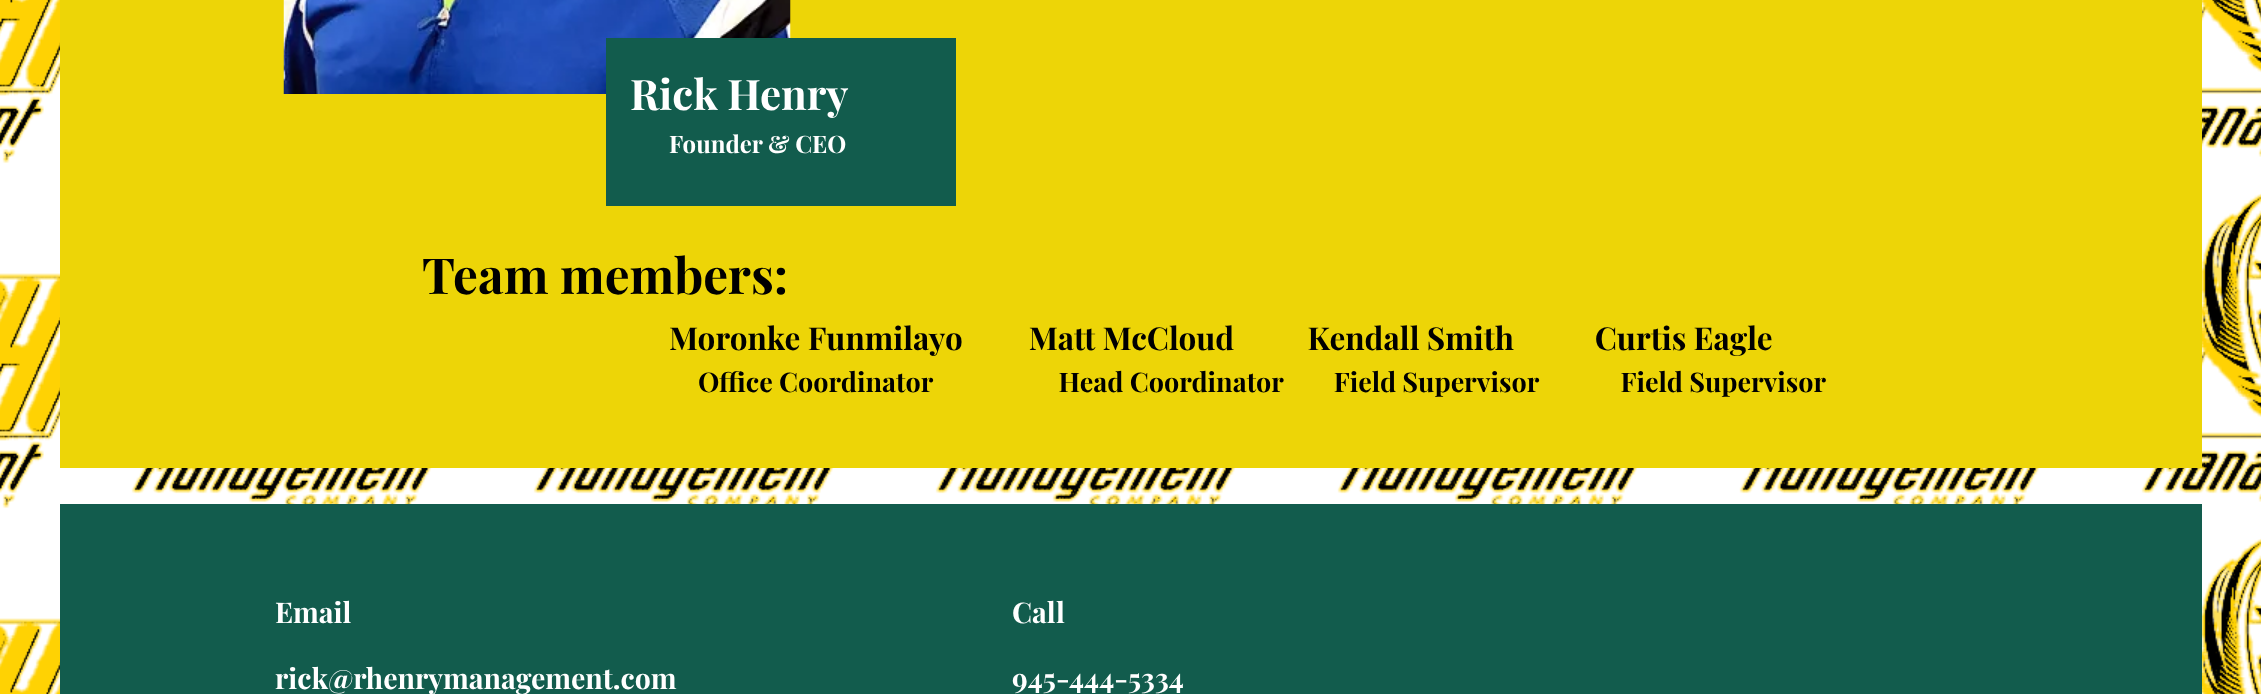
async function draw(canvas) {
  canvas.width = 2261;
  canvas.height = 694;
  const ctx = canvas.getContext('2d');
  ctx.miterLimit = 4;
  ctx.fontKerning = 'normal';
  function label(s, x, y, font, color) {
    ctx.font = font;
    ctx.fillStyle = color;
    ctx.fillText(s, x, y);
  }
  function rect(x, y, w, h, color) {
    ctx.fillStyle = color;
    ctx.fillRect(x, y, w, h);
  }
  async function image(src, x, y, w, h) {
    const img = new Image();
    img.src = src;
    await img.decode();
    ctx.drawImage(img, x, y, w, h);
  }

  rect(0, 0, 2261, 694, '#fff');
  await image('assets/img1.png', 0, 0, 2261, 694);
  rect(60, 0, 2142, 468, '#edd507');
  await image('assets/img2.png', 283, 0, 508, 94);
  rect(606, 38, 350, 168, '#125c4d');
  label('Rick Henry', 630, 110, 'bold 42px Playfair Display', '#fff');
  label('Founder & CEO', 669, 153, 'bold 24px Playfair Display', '#fff');
  label('Team members:', 422, 294, 'bold 49.5px Playfair Display', '#000');
  label('Moronke Funmilayo         Matt McCloud          Kendall Smith           Curtis Eagle', 669, 350, 'bold 31.5px Playfair Display', '#000');
  label('Office Coordinator                    Head Coordinator        Field Supervisor             Field Supervisor', 698, 392, 'bold 27px Playfair Display', '#000');
  rect(60, 504, 2142, 190, '#125c4d');
  label('Email', 275, 623, 'bold 28.5px Playfair Display', '#fff');
  label('rick@rhenrymanagement.com', 275, 689, 'bold 28.5px Playfair Display', '#fff');
  label('Call', 1012, 623, 'bold 28.5px Playfair Display', '#fff');
  label('945-444-5334', 1012, 689, 'bold 28.5px Playfair Display', '#fff');
}

draw(document.querySelector('canvas'));
